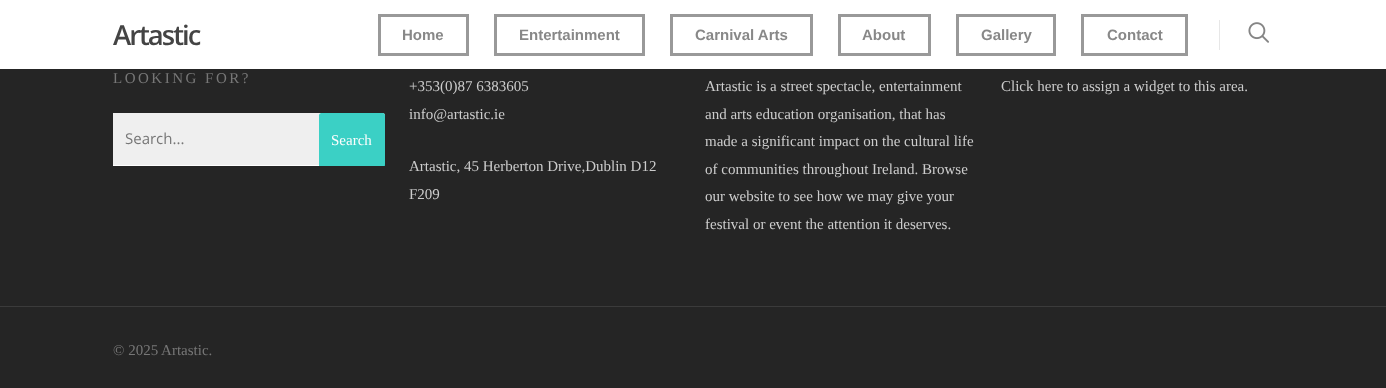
async function draw(canvas) {
  canvas.width = 1386;
  canvas.height = 388;
  const ctx = canvas.getContext('2d');
  ctx.miterLimit = 4;
  ctx.fontKerning = 'normal';
  function label(s, x, y, font, color) {
    ctx.font = font;
    ctx.fillStyle = color;
    ctx.fillText(s, x, y);
  }
  function rect(x, y, w, h, color) {
    ctx.fillStyle = color;
    ctx.fillRect(x, y, w, h);
  }
  async function image(src, x, y, w, h) {
    const img = new Image();
    img.src = src;
    await img.decode();
    ctx.drawImage(img, x, y, w, h);
  }

  rect(0, 0, 1386, 388, '#252525');
  rect(0, 0, 1386, 69, '#fff');
  ctx.letterSpacing = '-2px';
  label('Artastic', 113, 45, '600 27.5px Open Sans', '#444');
  ctx.strokeStyle = '#999';
  ctx.lineWidth = 3;
  ctx.strokeRect(379.5, 15.5, 88, 39);
  ctx.letterSpacing = '0px';
  label('Home', 402, 40, 'bold 15px Liberation Sans', '#888');
  ctx.strokeRect(495.5, 15.5, 148, 39);
  label('Entertainment', 519, 40, 'bold 15px Liberation Sans', '#888');
  ctx.strokeRect(671.5, 15.5, 140, 39);
  label('Carnival Arts', 695, 40, 'bold 15px Liberation Sans', '#888');
  ctx.strokeRect(839.5, 15.5, 90, 39);
  label('About', 862, 40, 'bold 15px Liberation Sans', '#888');
  ctx.strokeRect(957.5, 15.5, 97, 39);
  label('Gallery', 981, 40, 'bold 15px Liberation Sans', '#888');
  ctx.strokeRect(1082.5, 15.5, 104, 39);
  label('Contact', 1107, 40, 'bold 15px Liberation Sans', '#888');
  rect(1219, 20, 1, 30, '#e7e7e7');
  await image('assets/img1.png', 1248, 22, 21, 21);
  ctx.letterSpacing = '2.5px';
  label('LOOKING FOR?', 113, 83, '15px Liberation Serif', '#777');
  ctx.fillStyle = '#efefef';
  ctx.beginPath();
  ctx.roundRect(113, 113, 272, 53, [0, 2.5, 2.5, 0]);
  ctx.fill();
  rect(113, 165, 271, 1, '#fff');
  ctx.letterSpacing = '0px';
  label('Search...', 125, 144, '15px Open Sans', '#777');
  ctx.fillStyle = '#27ccc0e6';
  ctx.beginPath();
  ctx.roundRect(319, 113, 66, 53, [2.5, 2.5, 0, 0]);
  ctx.fill();
  label('Search', 331, 145, '15px Liberation Serif', '#fdfdfd');
  label('+353(0)87 6383605', 409, 91, '15px Liberation Serif', '#ccc');
  label('info@artastic.ie', 409, 119, '15px Liberation Serif', '#ccc');
  label('Artastic, 45 Herberton Drive,Dublin D12', 409, 171, '15px Liberation Serif', '#ccc');
  label('F209', 409, 199, '15px Liberation Serif', '#ccc');
  label('Artastic is a street spectacle, entertainment', 705, 91, '15px Liberation Serif', '#ccc');
  label('and arts education organisation, that has', 705, 119, '15px Liberation Serif', '#ccc');
  label('made a significant impact on the cultural life', 705, 146, '15px Liberation Serif', '#ccc');
  label('of communities throughout Ireland. Browse', 705, 174, '15px Liberation Serif', '#ccc');
  label('our website to see how we may give your', 705, 201, '15px Liberation Serif', '#ccc');
  label('festival or event the attention it deserves.', 705, 229, '15px Liberation Serif', '#ccc');
  label('Click here to assign a widget to this area.', 1001, 91, '15px Liberation Serif', '#ccc');
  rect(0, 306, 1386, 1, '#3b3b3b');
  label('© 2025 Artastic.', 113, 355, '15px Liberation Serif', '#777');
}

draw(document.querySelector('canvas'));
